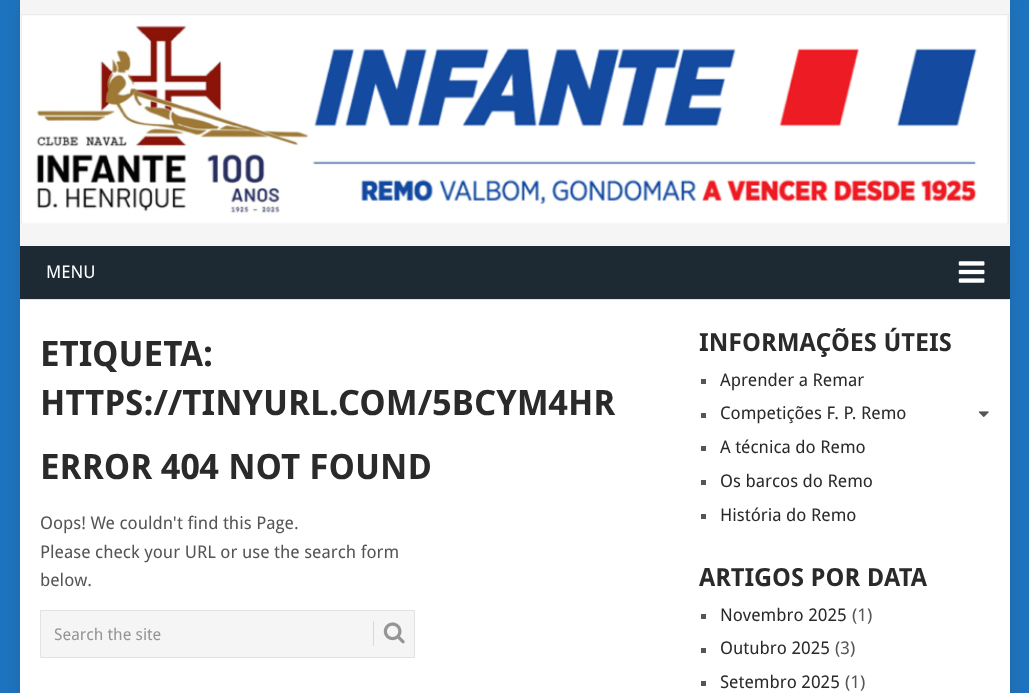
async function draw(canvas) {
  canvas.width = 1029;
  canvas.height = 693;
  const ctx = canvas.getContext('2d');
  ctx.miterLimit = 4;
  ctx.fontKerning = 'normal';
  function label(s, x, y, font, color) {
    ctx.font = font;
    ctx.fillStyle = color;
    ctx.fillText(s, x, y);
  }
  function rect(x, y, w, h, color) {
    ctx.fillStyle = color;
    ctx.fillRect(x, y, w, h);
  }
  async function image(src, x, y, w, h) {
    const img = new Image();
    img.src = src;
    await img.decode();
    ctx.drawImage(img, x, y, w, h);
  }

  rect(0, 0, 1029, 693, '#1e73be');
  ctx.fillStyle = '#3232322b';
  ctx.filter = 'blur(6px)';
  ctx.beginPath();
  ctx.rect(20, 0, 990, 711);
  ctx.fill();
  ctx.filter = 'none';
  rect(20, 300, 990, 393, '#fff');
  rect(20, 0, 990, 246, '#f5f5f5');
  await image('assets/img1.png', 21, 14, 988, 210);
  rect(20, 246, 990, 53, '#1d2933');
  label('MENU', 46, 278, '17.5px Droid Sans', '#fff');
  await image('assets/img2.png', 958, 261, 27, 22);
  rect(20, 299, 990, 1, '#e2e2e2');
  label('ETIQUETA:', 40, 366, 'bold 35px Droid Sans', '#2a2a2a');
  label('HTTPS://TINYURL.COM/5BCYM4HR', 40, 415, 'bold 35px Droid Sans', '#2a2a2a');
  label('ERROR 404 NOT FOUND', 40, 479, 'bold 35px Droid Sans', '#2a2a2a');
  label('Oops! We couldn\'t find this Page.', 40, 529, '17.5px Droid Sans', '#555');
  label('Please check your URL or use the search form', 40, 558, '17.5px Droid Sans', '#555');
  label('below.', 40, 586, '17.5px Droid Sans', '#555');
  ctx.fillStyle = '#f5f5f5';
  ctx.beginPath();
  ctx.rect(40.5, 610.5, 374, 47);
  ctx.fill();
  ctx.strokeStyle = '#e2e2e2';
  ctx.stroke();
  label('Search the site', 54, 640, '16.25px Droid Sans', '#959595');
  rect(373, 621, 1, 25, '#d8d8d8');
  await image('assets/img3.png', 383, 622, 22, 22);
  label('INFORMAÇÕES ÚTEIS', 699, 351, 'bold 25px Droid Sans', '#2a2a2a');
  rect(701, 379, 5, 5, '#555');
  label('Aprender a Remar', 720, 386, '17.5px Droid Sans', '#2a2a2a');
  rect(701, 413, 5, 5, '#555');
  label('Competições F. P. Remo', 720, 419, '17.5px Droid Sans', '#2a2a2a');
  await image('assets/img4.png', 978, 411, 11, 6);
  rect(701, 446, 5, 5, '#555');
  label('A técnica do Remo', 720, 453, '17.5px Droid Sans', '#2a2a2a');
  rect(701, 480, 5, 5, '#555');
  label('Os barcos do Remo', 720, 487, '17.5px Droid Sans', '#2a2a2a');
  rect(701, 514, 5, 5, '#555');
  label('História do Remo', 720, 521, '17.5px Droid Sans', '#2a2a2a');
  label('ARTIGOS POR DATA', 699, 586, 'bold 25px Droid Sans', '#2a2a2a');
  rect(701, 614, 5, 5, '#555');
  label('Novembro 2025', 720, 621, '17.5px Droid Sans', '#2a2a2a');
  label('(1)', 852, 621, '17.5px Droid Sans', '#555');
  rect(701, 648, 5, 5, '#555');
  label('Outubro 2025', 720, 654, '17.5px Droid Sans', '#2a2a2a');
  label('(3)', 835, 654, '17.5px Droid Sans', '#555');
  rect(701, 681, 5, 5, '#555');
  label('Setembro 2025', 720, 688, '17.5px Droid Sans', '#2a2a2a');
  label('(1)', 845, 688, '17.5px Droid Sans', '#555');
}

draw(document.querySelector('canvas'));
